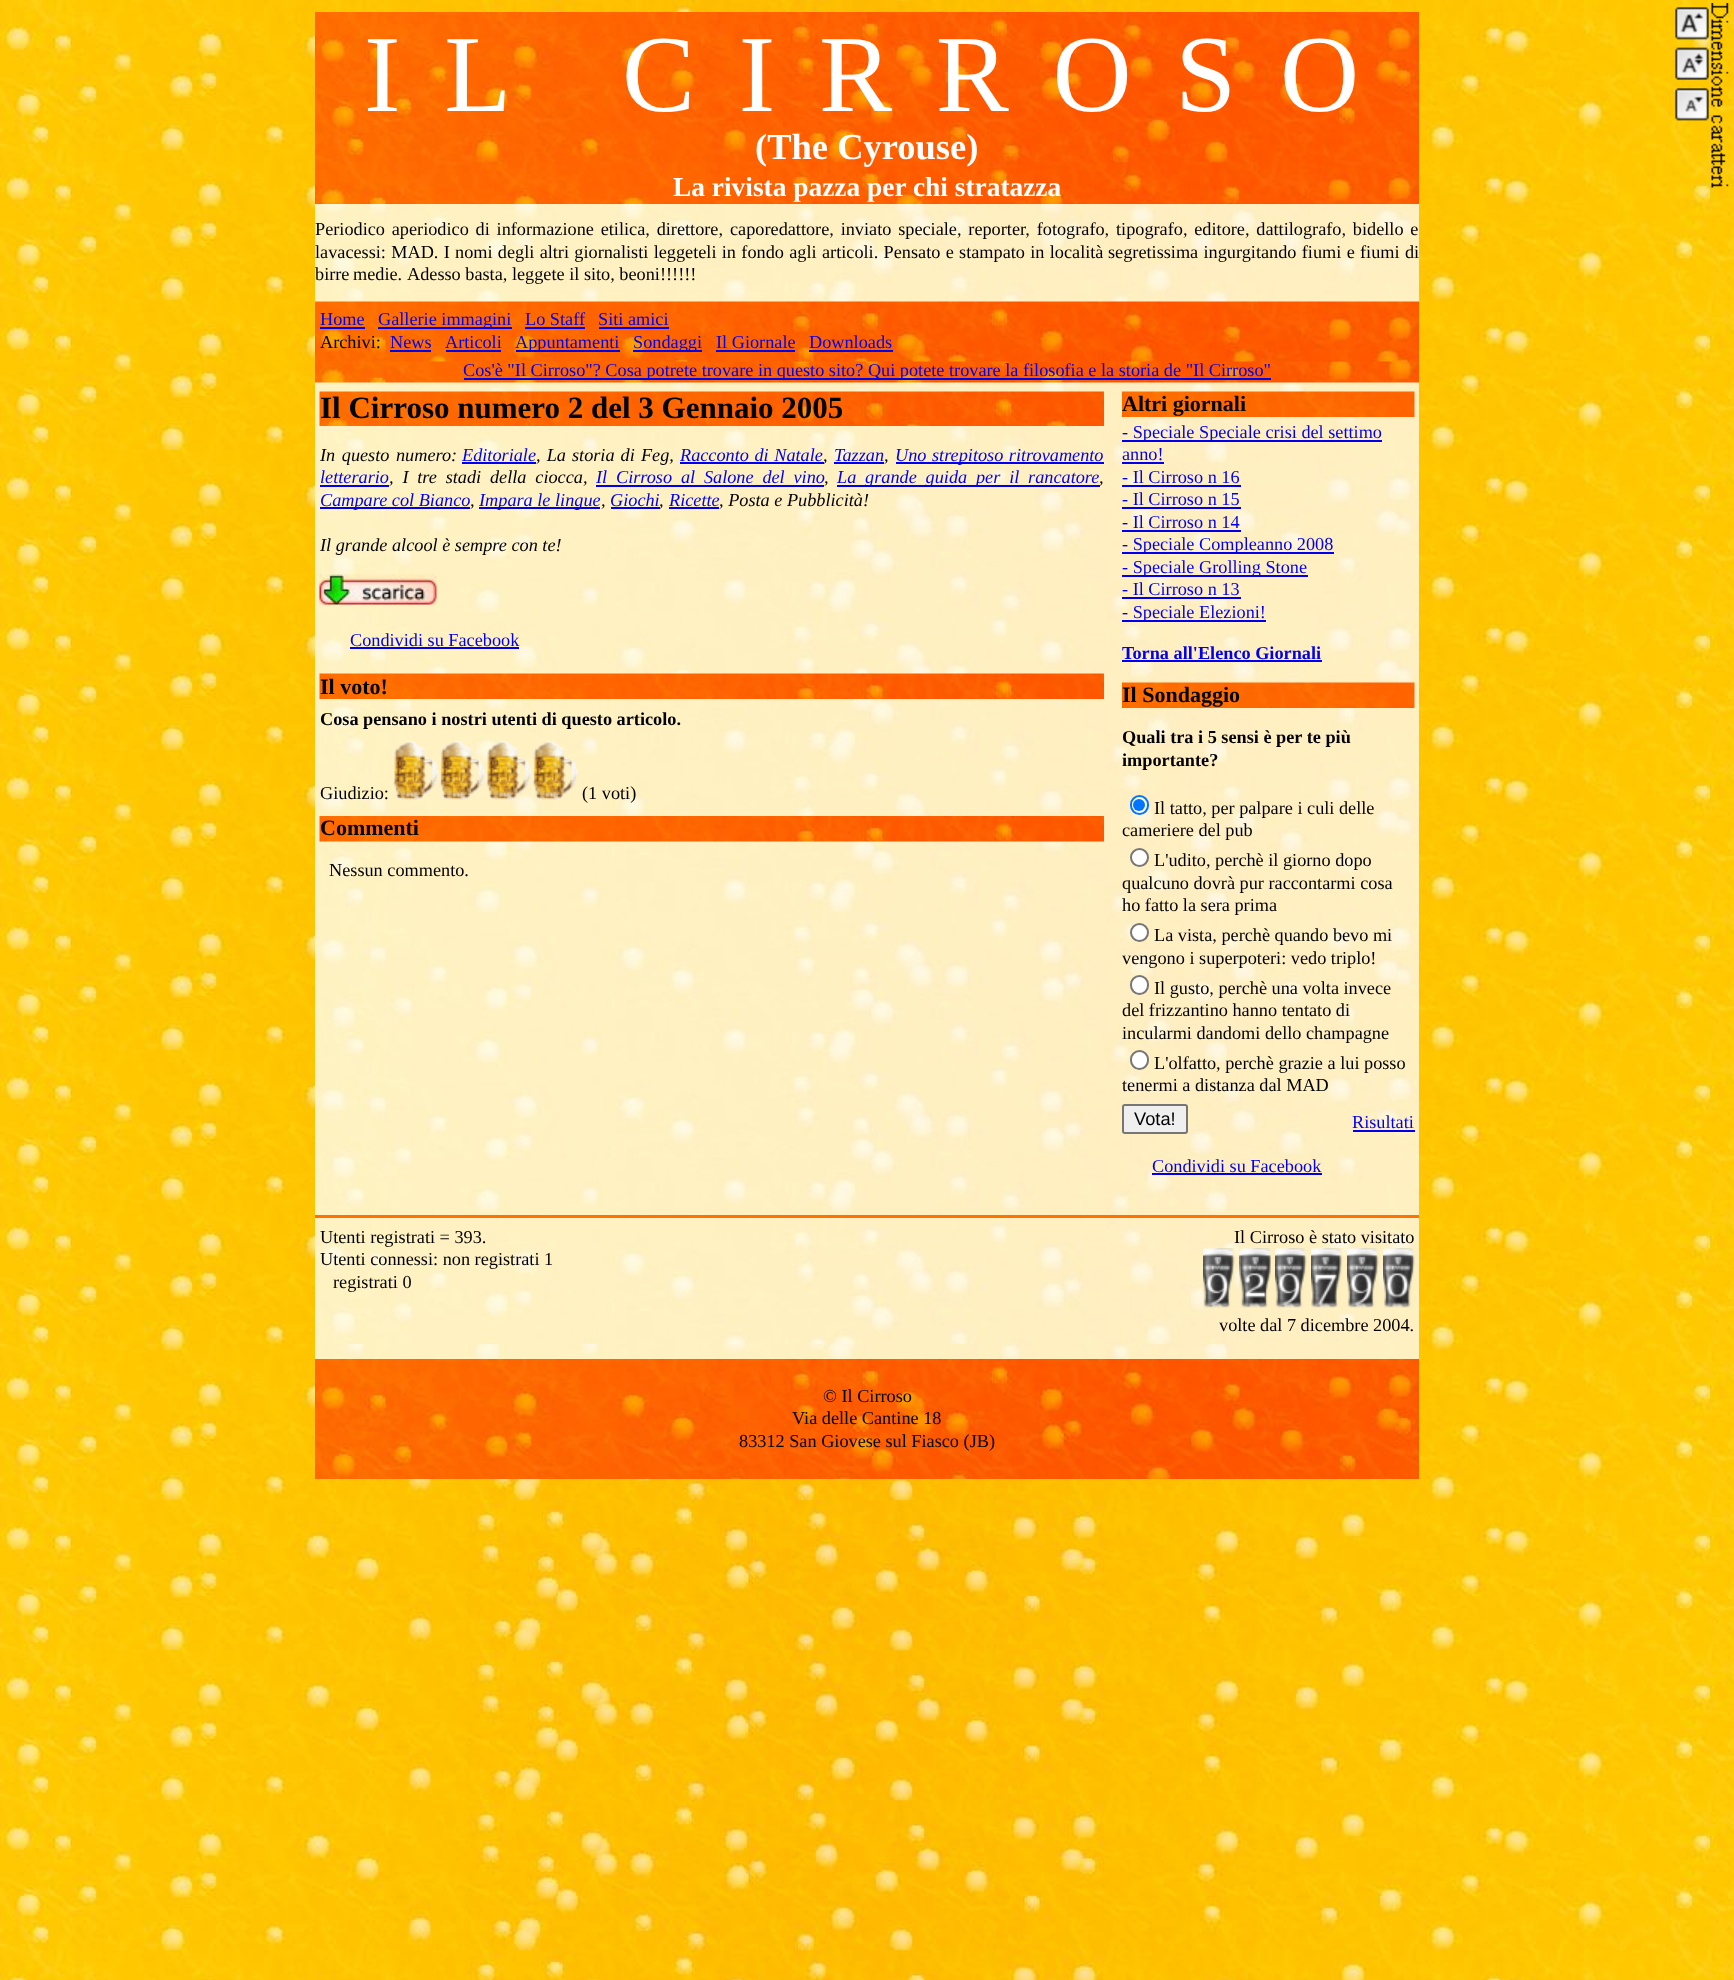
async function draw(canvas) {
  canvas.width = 1734;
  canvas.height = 1980;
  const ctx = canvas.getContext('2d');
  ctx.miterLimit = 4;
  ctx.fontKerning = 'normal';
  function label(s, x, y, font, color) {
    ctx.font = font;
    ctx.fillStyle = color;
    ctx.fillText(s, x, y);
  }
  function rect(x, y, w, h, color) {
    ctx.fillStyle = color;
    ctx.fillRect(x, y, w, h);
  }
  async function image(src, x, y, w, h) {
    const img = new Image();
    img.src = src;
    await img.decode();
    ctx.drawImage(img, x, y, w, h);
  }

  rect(0, 0, 1734, 1980, '#fff');
  await image('assets/img1.png', 0, 0, 1734, 1980);
  await image('assets/img2.png', 315, 204, 1104, 1155);
  await image('assets/img3.png', 315, 12, 1104, 192);
  ctx.letterSpacing = '43.75px';
  label('IL CIRROSO', 364, 111, '109.5px Liberation Serif', '#fff');
  ctx.letterSpacing = '0px';
  label('(The Cyrouse)', 755, 159, 'bold 36.5px Liberation Serif', '#fff');
  label('La rivista pazza per chi stratazza', 673, 196, 'bold 27.4px Liberation Serif', '#fff');
  ctx.wordSpacing = '2.25px';
  label('Periodico aperiodico di informazione etilica, direttore,', 315, 235, '18.25px Liberation Serif', '#000');
  label('caporedattore, inviato speciale, reporter, fotografo,', 730, 235, '18.25px Liberation Serif', '#000');
  label('tipografo, editore, dattilografo, bidello e', 1116, 235, '18.25px Liberation Serif', '#000');
  ctx.wordSpacing = '0.75px';
  label('lavacessi: MAD. I', 315, 258, '18.25px Liberation Serif', '#000');
  label('nomi degli altri giornalisti leggeteli in fondo agli', 455, 258, '18.25px Liberation Serif', '#000');
  label('articoli. Pensato e stampato in località', 822, 258, '18.25px Liberation Serif', '#000');
  label('segretissima ingurgitando fiumi e fiumi di', 1108, 258, '18.25px Liberation Serif', '#000');
  ctx.wordSpacing = '-1px';
  label('birre medie.', 315, 280, '18.25px Liberation Serif', '#000');
  ctx.wordSpacing = '0px';
  label('Adesso basta, leggete il sito, beoni!!!!!!', 407, 280, '18.25px Liberation Serif', '#000');
  await image('assets/img5.png', 315, 361, 1104, 22);
  await image('assets/img4.png', 315, 301, 1104, 61);
  label('Home', 320, 325, '18.25px Liberation Serif', '#00e');
  rect(320, 327, 45, 2, '#00e');
  rect(378, 327, 134, 2, '#00e');
  label('Gallerie immagini', 378, 325, '18.25px Liberation Serif', '#00e');
  label('Lo Staff', 525, 325, '18.25px Liberation Serif', '#00e');
  rect(525, 327, 60, 2, '#00e');
  label('Siti amici', 598, 325, '18.25px Liberation Serif', '#00e');
  rect(599, 327, 70, 2, '#00e');
  label('Archivi:', 320, 348, '18.25px Liberation Serif', '#000');
  label('News', 390, 348, '18.25px Liberation Serif', '#00e');
  rect(390, 350, 41, 2, '#00e');
  label('Articoli', 445, 348, '18.25px Liberation Serif', '#00e');
  rect(446, 350, 55, 2, '#00e');
  rect(516, 350, 104, 2, '#00e');
  label('Appuntamenti', 515, 348, '18.25px Liberation Serif', '#00e');
  rect(633, 350, 69, 2, '#00e');
  label('Sondaggi', 633, 348, '18.25px Liberation Serif', '#00e');
  label('Il Giornale', 716, 348, '18.25px Liberation Serif', '#00e');
  rect(716, 350, 79, 2, '#00e');
  label('Downloads', 809, 348, '18.25px Liberation Serif', '#00e');
  rect(809, 350, 84, 2, '#00e');
  rect(464, 378, 807, 2, '#00e');
  label('Cos\'è "Il Cirroso"? Cosa potrete trovare in questo sito? Qui potete trovare la filosofia e la storia de "Il Cirroso"', 463, 376, '18.25px Liberation Serif', '#00e');
  await image('assets/img6.png', 319, 391, 785, 35);
  label('Il Cirroso numero 2 del 3 Gennaio 2005', 320, 418, 'bold 31px Liberation Serif', '#000');
  ctx.wordSpacing = '2px';
  label('In questo numero:', 320, 461, 'italic 18.25px Liberation Serif', '#000');
  ctx.wordSpacing = '0px';
  label('Editoriale', 462, 461, 'italic 18.25px Liberation Serif', '#00e');
  rect(462, 462, 74, 2, '#00e');
  ctx.wordSpacing = '1.5px';
  label(', La storia di Feg,', 536, 461, 'italic 18.25px Liberation Serif', '#000');
  ctx.wordSpacing = '1px';
  label('Racconto di Natale', 680, 461, 'italic 18.25px Liberation Serif', '#00e');
  rect(680, 462, 144, 2, '#00e');
  ctx.wordSpacing = '0px';
  label(',', 823, 461, 'italic 18.25px Liberation Serif', '#000');
  label('Tazzan', 834, 461, 'italic 18.25px Liberation Serif', '#00e');
  rect(834, 462, 50, 2, '#00e');
  label(',', 884, 461, 'italic 18.25px Liberation Serif', '#000');
  rect(896, 462, 208, 2, '#00e');
  ctx.wordSpacing = '1px';
  label('Uno strepitoso ritrovamento', 895, 461, 'italic 18.25px Liberation Serif', '#00e');
  ctx.wordSpacing = '0px';
  label('letterario', 320, 483, 'italic 18.25px Liberation Serif', '#00e');
  rect(320, 485, 69, 2, '#00e');
  ctx.wordSpacing = '4.25px';
  label(', I tre stadi della ciocca,', 389, 483, 'italic 18.25px Liberation Serif', '#000');
  label('Il Cirroso al Salone del vino', 596, 483, 'italic 18.25px Liberation Serif', '#00e');
  rect(596, 485, 228, 2, '#00e');
  ctx.wordSpacing = '0px';
  label(',', 824, 483, 'italic 18.25px Liberation Serif', '#000');
  rect(837, 485, 263, 2, '#00e');
  ctx.wordSpacing = '4.25px';
  label('La grande guida per il rancatore', 837, 483, 'italic 18.25px Liberation Serif', '#00e');
  ctx.wordSpacing = '0px';
  label(',', 1099, 483, 'italic 18.25px Liberation Serif', '#000');
  rect(320, 507, 150, 2, '#00e');
  label('Campare col Bianco', 320, 506, 'italic 18.25px Liberation Serif', '#00e');
  label(',', 470, 506, 'italic 18.25px Liberation Serif', '#000');
  rect(479, 507, 121, 2, '#00e');
  label('Impara le lingue', 479, 506, 'italic 18.25px Liberation Serif', '#00e');
  label(',', 601, 506, 'italic 18.25px Liberation Serif', '#000');
  label('Giochi', 610, 506, 'italic 18.25px Liberation Serif', '#00e');
  rect(611, 507, 49, 2, '#00e');
  label(',', 659, 506, 'italic 18.25px Liberation Serif', '#000');
  label('Ricette', 669, 506, 'italic 18.25px Liberation Serif', '#00e');
  rect(669, 507, 50, 2, '#00e');
  label(', Posta e Pubblicità!', 719, 506, 'italic 18.25px Liberation Serif', '#000');
  label('Il grande alcool è sempre con te!', 320, 551, 'italic 18.25px Liberation Serif', '#000');
  await image('assets/img7.png', 319, 574, 118, 31);
  label('Condividi su Facebook', 350, 646, '18.25px Liberation Serif', '#00e');
  rect(350, 647, 169, 2, '#00e');
  await image('assets/img8.png', 319, 673, 785, 26);
  label('Il voto!', 320, 694, 'bold 22px Liberation Serif', '#000');
  label('Cosa pensano i nostri utenti di questo articolo.', 320, 725, 'bold 18.25px Liberation Serif', '#000');
  label('Giudizio:', 320, 799, '18.25px Liberation Serif', '#000');
  await image('assets/img9.png', 393, 741, 185, 59);
  label('(1 voti)', 582, 799, '18.25px Liberation Serif', '#000');
  await image('assets/img10.png', 319, 816, 785, 26);
  label('Commenti', 320, 835, 'bold 22px Liberation Serif', '#000');
  label('Nessun commento.', 329, 876, '18.25px Liberation Serif', '#000');
  await image('assets/img11.png', 1122, 391, 293, 26);
  label('Altri giornali', 1122, 411, 'bold 22px Liberation Serif', '#000');
  rect(1122, 440, 260, 2, '#00e');
  label('- Speciale Speciale crisi del settimo', 1122, 438, '18.25px Liberation Serif', '#00e');
  label('anno!', 1122, 460, '18.25px Liberation Serif', '#00e');
  rect(1122, 462, 42, 2, '#00e');
  label('- Il Cirroso n 16', 1122, 483, '18.25px Liberation Serif', '#00e');
  rect(1122, 485, 119, 2, '#00e');
  label('- Il Cirroso n 15', 1122, 505, '18.25px Liberation Serif', '#00e');
  rect(1122, 507, 119, 2, '#00e');
  label('- Il Cirroso n 14', 1122, 528, '18.25px Liberation Serif', '#00e');
  rect(1122, 530, 119, 2, '#00e');
  rect(1122, 552, 212, 2, '#00e');
  label('- Speciale Compleanno 2008', 1122, 550, '18.25px Liberation Serif', '#00e');
  rect(1122, 575, 186, 2, '#00e');
  label('- Speciale Grolling Stone', 1122, 573, '18.25px Liberation Serif', '#00e');
  label('- Il Cirroso n 13', 1122, 595, '18.25px Liberation Serif', '#00e');
  rect(1122, 597, 119, 2, '#00e');
  rect(1122, 620, 144, 2, '#00e');
  label('- Speciale Elezioni!', 1122, 618, '18.25px Liberation Serif', '#00e');
  label('Torna all\'Elenco Giornali', 1122, 659, 'bold 18.25px Liberation Serif', '#00e');
  rect(1122, 660, 200, 2, '#00e');
  await image('assets/img12.png', 1122, 682, 293, 26);
  label('Il Sondaggio', 1122, 702, 'bold 22px Liberation Serif', '#000');
  label('Quali tra i 5 sensi è per te più', 1122, 743, 'bold 18.25px Liberation Serif', '#000');
  label('importante?', 1122, 766, 'bold 18.25px Liberation Serif', '#000');
  ctx.fillStyle = '#fff';
  ctx.beginPath();
  ctx.roundRect(1131, 796, 17, 18, 8.5);
  ctx.fill();
  ctx.strokeStyle = '#0075ff';
  ctx.lineWidth = 2;
  ctx.stroke();
  ctx.fillStyle = '#0075ff';
  ctx.beginPath();
  ctx.arc(1139, 805, 6, 0, 2 * Math.PI);
  ctx.fill();
  label('Il tatto, per palpare i culi delle', 1154, 814, '18.25px Liberation Serif', '#000');
  label('cameriere del pub', 1122, 836, '18.25px Liberation Serif', '#000');
  ctx.fillStyle = '#fff';
  ctx.beginPath();
  ctx.arc(1139.5, 857.5, 8.5, 0, 2 * Math.PI);
  ctx.fill();
  ctx.strokeStyle = '#767676';
  ctx.stroke();
  label('L\'udito, perchè il giorno dopo', 1154, 866, '18.25px Liberation Serif', '#000');
  label('qualcuno dovrà pur raccontarmi cosa', 1122, 889, '18.25px Liberation Serif', '#000');
  label('ho fatto la sera prima', 1122, 911, '18.25px Liberation Serif', '#000');
  ctx.fillStyle = '#fff';
  ctx.beginPath();
  ctx.arc(1139.5, 932.5, 8.5, 0, 2 * Math.PI);
  ctx.fill();
  ctx.stroke();
  label('La vista, perchè quando bevo mi', 1154, 941, '18.25px Liberation Serif', '#000');
  label('vengono i superpoteri: vedo triplo!', 1122, 964, '18.25px Liberation Serif', '#000');
  ctx.fillStyle = '#fff';
  ctx.beginPath();
  ctx.roundRect(1131, 976, 17, 18, 8.5);
  ctx.fill();
  ctx.stroke();
  label('Il gusto, perchè una volta invece', 1154, 994, '18.25px Liberation Serif', '#000');
  label('del frizzantino hanno tentato di', 1122, 1016, '18.25px Liberation Serif', '#000');
  label('incularmi dandomi dello champagne', 1122, 1039, '18.25px Liberation Serif', '#000');
  ctx.fillStyle = '#fff';
  ctx.beginPath();
  ctx.roundRect(1131, 1051, 17, 18, 8.5);
  ctx.fill();
  ctx.stroke();
  label('L\'olfatto, perchè grazie a lui posso', 1154, 1069, '18.25px Liberation Serif', '#000');
  label('tenermi a distanza dal MAD', 1122, 1091, '18.25px Liberation Serif', '#000');
  ctx.fillStyle = '#efefef';
  ctx.beginPath();
  ctx.roundRect(1123, 1105, 64, 28, 2);
  ctx.fill();
  ctx.stroke();
  label('Vota!', 1134, 1125, '18.25px Liberation Sans', '#000');
  label('Risultati', 1352, 1128, '18.25px Liberation Serif', '#00e');
  rect(1353, 1130, 62, 2, '#00e');
  label('Condividi su Facebook', 1152, 1172, '18.25px Liberation Serif', '#00e');
  rect(1152, 1173, 170, 2, '#00e');
  await image('assets/img13.png', 315, 1218, 1103, 126);
  rect(315, 1215, 1104, 3, '#ff7200');
  label('Utenti registrati = 393.', 320, 1243, '18.25px Liberation Serif', '#000');
  label('Utenti connessi: non registrati 1', 320, 1265, '18.25px Liberation Serif', '#000');
  label('registrati 0', 333, 1288, '18.25px Liberation Serif', '#000');
  label('Il Cirroso è stato visitato', 1234, 1243, '18.25px Liberation Serif', '#000');
  await image('assets/img14.png', 1203, 1248, 32, 60);
  await image('assets/img15.png', 1239, 1248, 32, 60);
  await image('assets/img16.png', 1275, 1248, 32, 60);
  await image('assets/img17.png', 1311, 1248, 32, 60);
  await image('assets/img18.png', 1347, 1248, 32, 60);
  await image('assets/img19.png', 1383, 1248, 32, 60);
  label('volte dal 7 dicembre 2004.', 1219, 1331, '18.25px Liberation Serif', '#000');
  await image('assets/img20.png', 315, 1359, 1104, 120);
  label('© Il Cirroso', 823, 1402, '18.25px Liberation Serif', '#000');
  label('Via delle Cantine 18', 792, 1424, '18.25px Liberation Serif', '#000');
  label('83312 San Giovese sul Fiasco (JB)', 739, 1447, '18.25px Liberation Serif', '#000');
  await image('assets/img21.png', 1711, 3, 18, 185);
  await image('assets/img22.png', 1675, 7, 34, 33);
  await image('assets/img23.png', 1675, 47, 34, 33);
  await image('assets/img24.png', 1675, 88, 34, 33);
}

draw(document.querySelector('canvas'));
